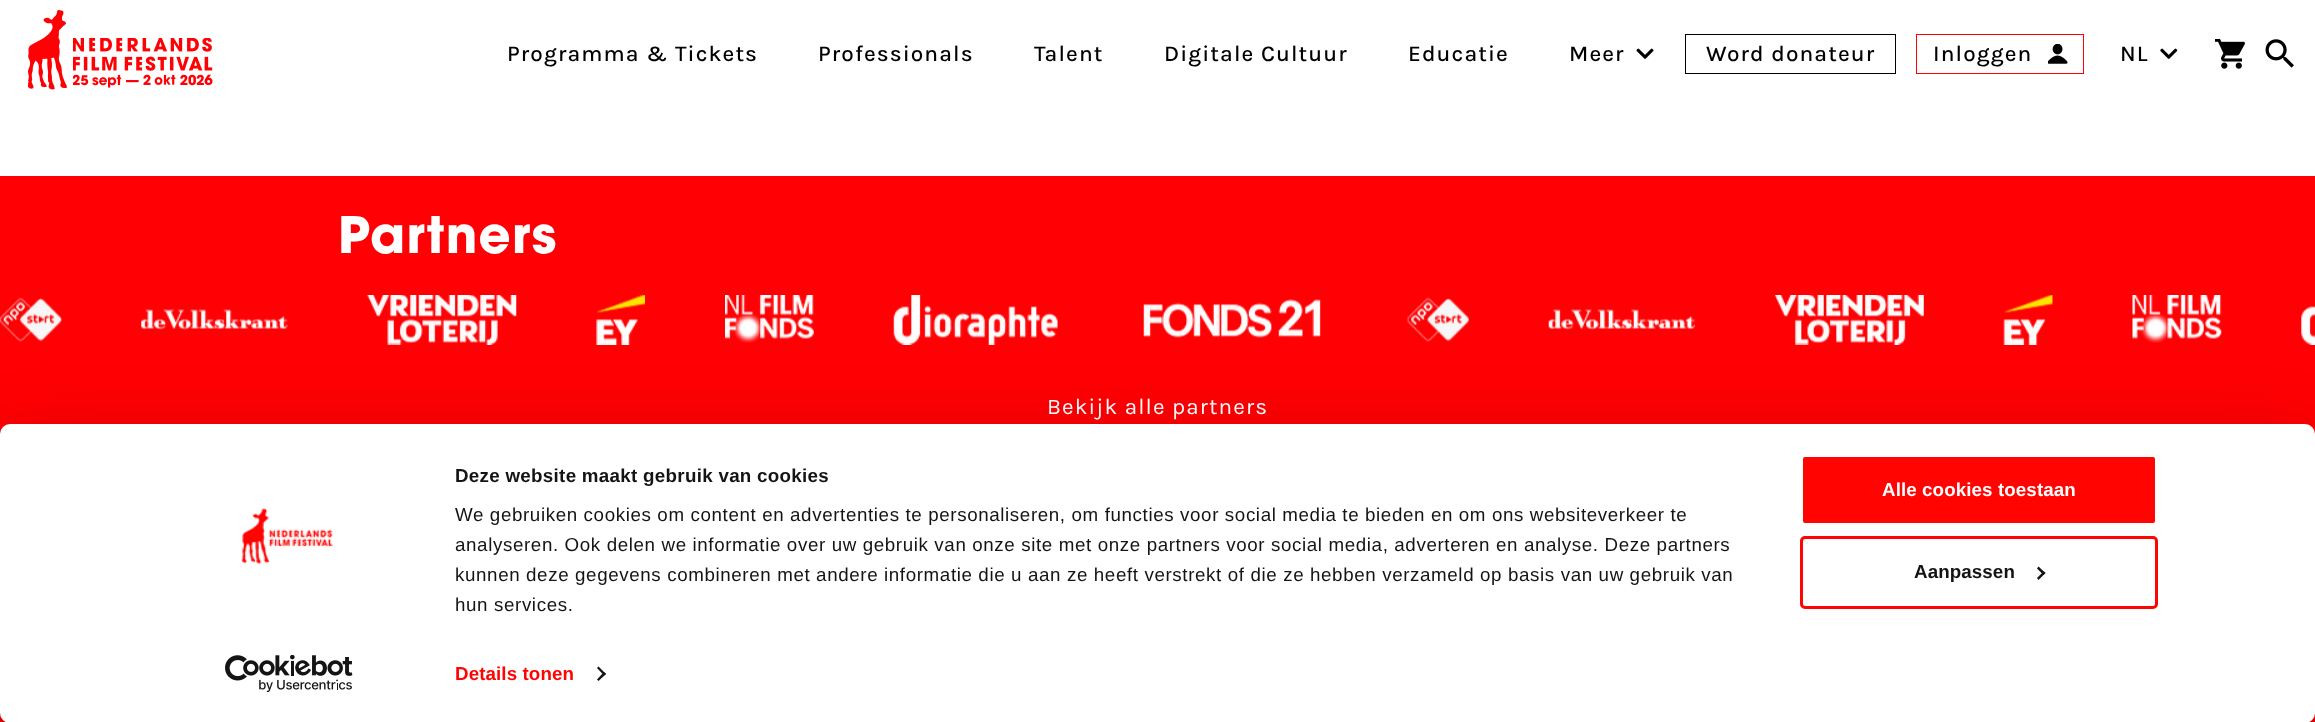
async function draw(canvas) {
  canvas.width = 2315;
  canvas.height = 722;
  const ctx = canvas.getContext('2d');
  ctx.miterLimit = 4;
  ctx.fontKerning = 'normal';
  function label(s, x, y, font, color) {
    ctx.font = font;
    ctx.fillStyle = color;
    ctx.fillText(s, x, y);
  }
  function rect(x, y, w, h, color) {
    ctx.fillStyle = color;
    ctx.fillRect(x, y, w, h);
  }
  function roundedRect(x, y, w, h, r, color) {
    ctx.fillStyle = color;
    ctx.beginPath();
    ctx.roundRect(x, y, w, h, r);
    ctx.fill();
  }
  async function image(src, x, y, w, h) {
    const img = new Image();
    img.src = src;
    await img.decode();
    ctx.drawImage(img, x, y, w, h);
  }
  let path;

  rect(0, 0, 2315, 722, '#fff');
  await image('assets/img1.png', 28, 10, 39, 80);
  await image('assets/img2.png', 73, 38, 140, 50);
  ctx.letterSpacing = '1.1px';
  label('Programma & Tickets', 507, 61, '500 22.5px Karla', '#000');
  label('Professionals', 818, 61, '500 22.5px Karla', '#000');
  label('Talent', 1034, 61, '500 22.5px Karla', '#000');
  label('Digitale Cultuur', 1164, 61, '500 22.5px Karla', '#000');
  label('Educatie', 1408, 61, '500 22.5px Karla', '#000');
  label('Meer', 1569, 61, '500 22.5px Karla', '#000');
  await image('assets/img3.png', 1636, 48, 18, 11);
  ctx.strokeStyle = '#000';
  ctx.strokeRect(1685.5, 34.5, 210, 39);
  label('Word donateur', 1706, 61, '500 22.5px Karla', '#000');
  ctx.strokeStyle = '#ff0004';
  ctx.strokeRect(1916.5, 34.5, 167, 39);
  label('Inloggen', 1933, 61, '500 22.5px Karla', '#000');
  await image('assets/img4.png', 2048, 44, 20, 20);
  label('NL', 2120, 61, '500 22.5px Karla', '#000');
  await image('assets/img5.png', 2160, 48, 18, 11);
  await image('assets/img6.png', 2215, 39, 30, 30);
  await image('assets/img7.png', 2265, 39, 29, 29);
  rect(0, 176, 2315, 546, '#ff0004');
  ctx.letterSpacing = '1.25px';
  label('Partners', 338, 253, 'bold 50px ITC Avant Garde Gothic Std', '#fff');
  await image('assets/img8.png', 0, 297, 62, 45);
  await image('assets/img9.png', 141, 309, 147, 21);
  await image('assets/img10.png', 367, 295, 150, 50);
  await image('assets/img11.png', 596, 295, 49, 50);
  await image('assets/img12.png', 725, 295, 89, 48);
  await image('assets/img13.png', 893, 295, 165, 50);
  await image('assets/img14.png', 1143, 299, 178, 39);
  await image('assets/img15.png', 1407, 297, 62, 45);
  await image('assets/img16.png', 1548, 309, 147, 21);
  await image('assets/img17.png', 1775, 295, 149, 50);
  await image('assets/img18.png', 2003, 295, 50, 50);
  await image('assets/img19.png', 2132, 295, 90, 48);
  await image('assets/img20.png', 2301, 306, 14, 39);
  ctx.letterSpacing = '1.1px';
  label('Bekijk alle partners', 1047, 414, '22.5px Karla', '#fff');
  ctx.fillStyle = '#0000004d';
  ctx.filter = 'blur(44px)';
  ctx.beginPath();
  ctx.roundRect(0, 461, 2315, 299, 10);
  ctx.fill();
  ctx.filter = 'none';
  roundedRect(0, 424, 2315, 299, 10, '#fff');
  await image('assets/img21.png', 241, 508, 92, 56);
  await image('assets/img22.png', 225, 655, 128, 38);
  ctx.letterSpacing = '0.3px';
  label('Deze website maakt gebruik van cookies', 455, 482, 'bold 18.75px Liberation Sans', '#141414');
  ctx.letterSpacing = '0.62px';
  label('We gebruiken cookies om content en advertenties te personaliseren, om functies voor social media te bieden en om ons websiteverkeer te', 455, 521, '18.75px Liberation Sans', '#141414');
  label('analyseren. Ook delen we informatie over uw gebruik van onze site met onze partners voor social media, adverteren en analyse. Deze partners', 455, 551, '18.75px Liberation Sans', '#141414');
  label('kunnen deze gegevens combineren met andere informatie die u aan ze heeft verstrekt of die ze hebben verzameld op basis van uw gebruik van', 455, 581, '18.75px Liberation Sans', '#141414');
  label('hun services.', 455, 611, '18.75px Liberation Sans', '#141414');
  ctx.letterSpacing = '0.1px';
  label('Details tonen', 455, 680, 'bold 18.75px Liberation Sans', '#ff0400');
  ctx.fillStyle = '#141414';
  path = new Path2D('M598.5 666.5L606 674L604 675.5L597 668Z');
  ctx.fill(path);
  path = new Path2D('M604 672L606 674L598.5 681L597 679.5Z');
  ctx.fill(path);
  ctx.fillStyle = '#ff0400';
  ctx.beginPath();
  ctx.roundRect(1801.5, 455.5, 355, 69, 3.5);
  ctx.fill();
  ctx.strokeStyle = '#fff';
  ctx.lineWidth = 3;
  ctx.stroke();
  label('Alle cookies toestaan', 1882, 496, 'bold 18.75px Liberation Sans', '#fff');
  ctx.beginPath();
  ctx.roundRect(1801.5, 537.5, 355, 70, 3.5);
  ctx.strokeStyle = '#ff0400';
  ctx.stroke();
  label('Aanpassen', 1914, 578, 'bold 18.75px Liberation Sans', '#141414');
  path = new Path2D('M2038.5 566.5L2045.5 573L2043.5 575L2037 568.5Z');
  ctx.fill(path);
  path = new Path2D('M2043.5 571.5L2045.5 573L2038.5 580L2037 578Z');
  ctx.fill(path);
}

draw(document.querySelector('canvas'));
